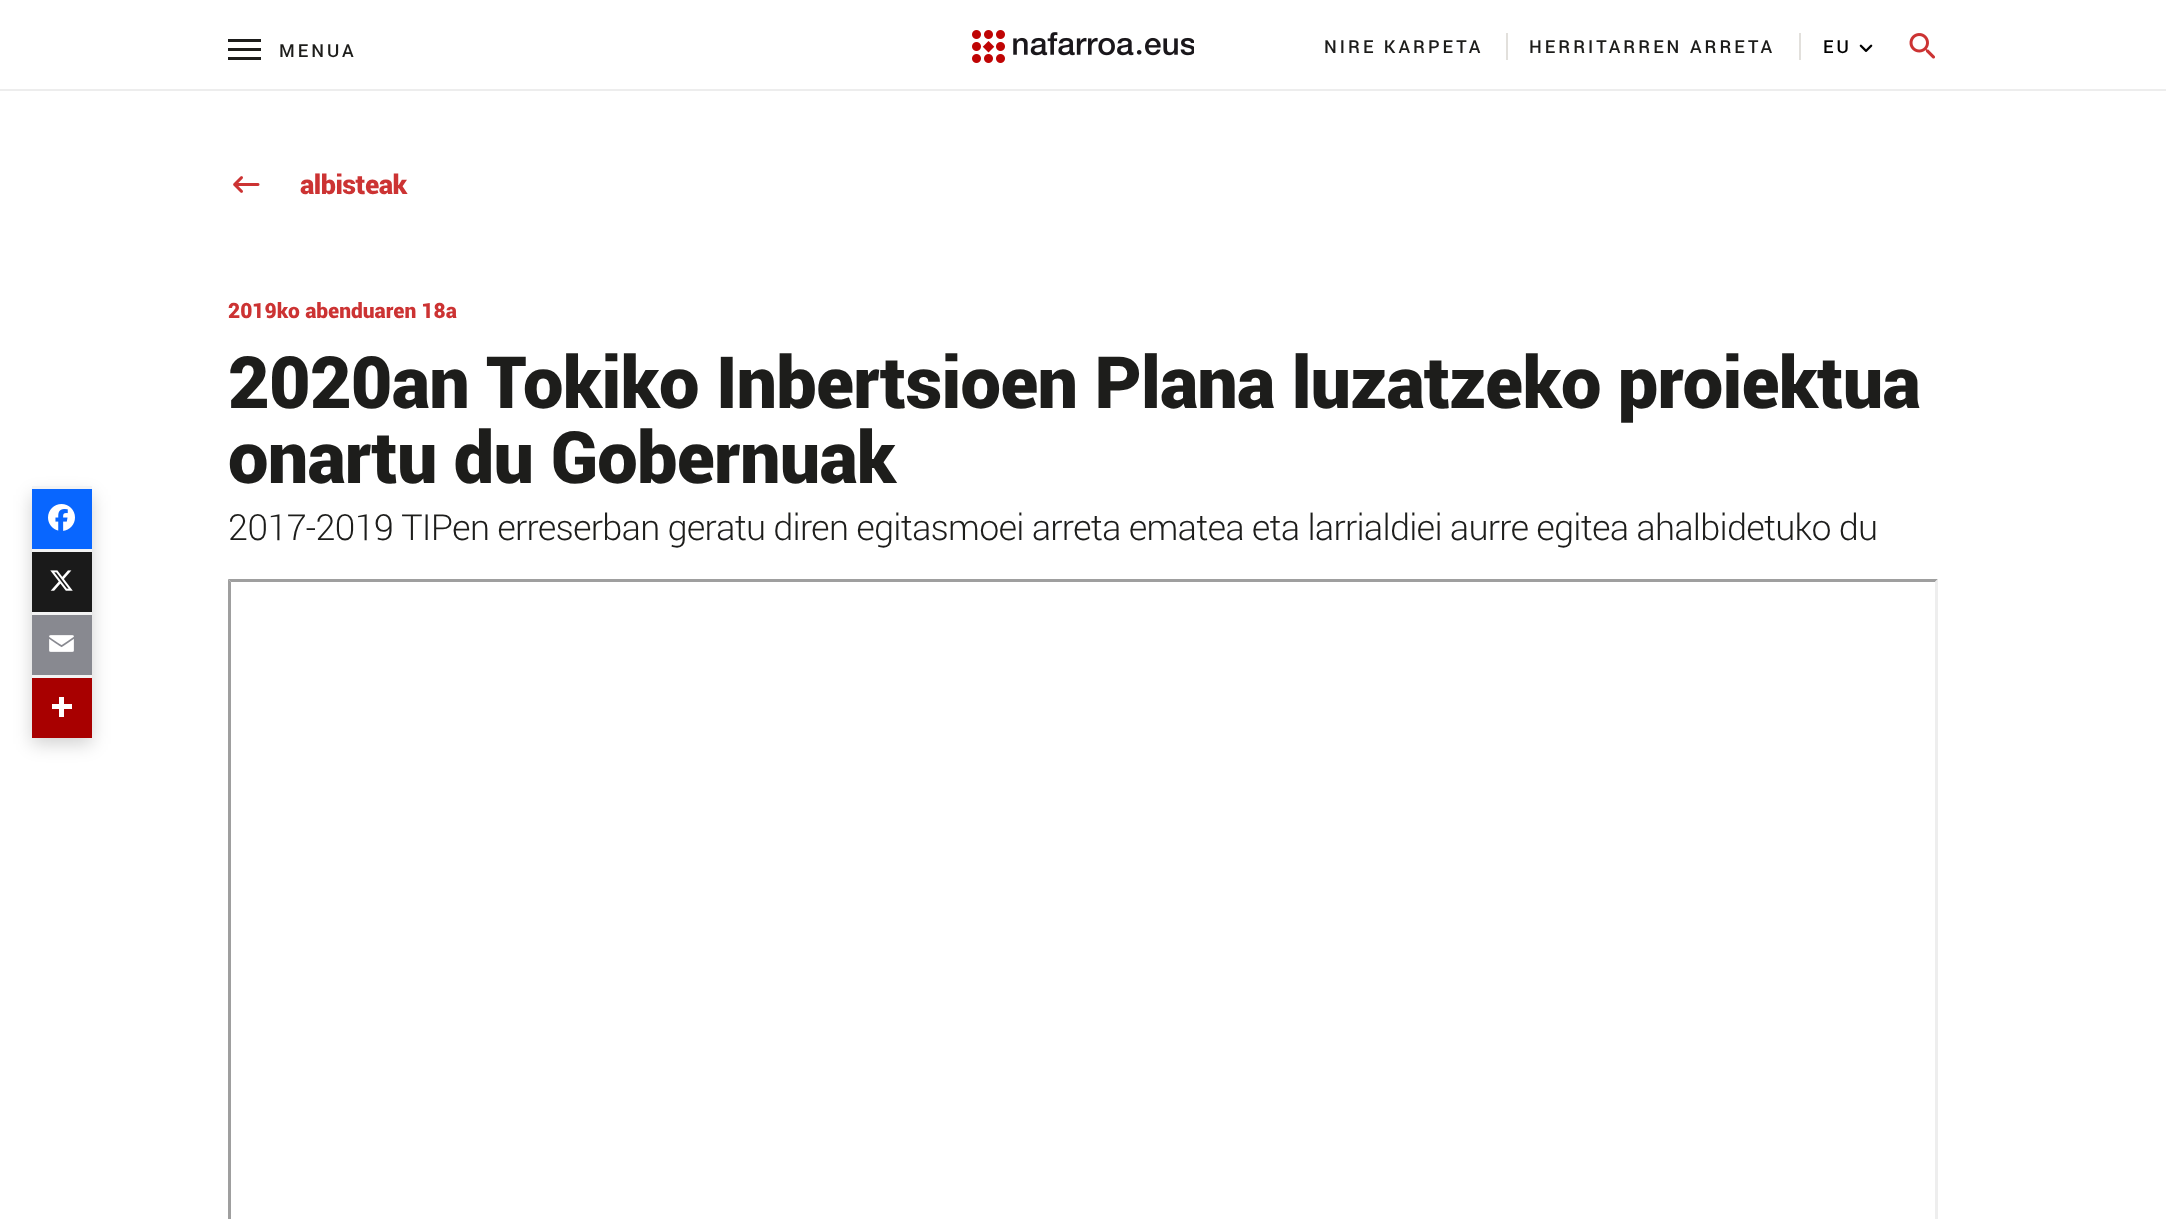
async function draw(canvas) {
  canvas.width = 2166;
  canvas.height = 1219;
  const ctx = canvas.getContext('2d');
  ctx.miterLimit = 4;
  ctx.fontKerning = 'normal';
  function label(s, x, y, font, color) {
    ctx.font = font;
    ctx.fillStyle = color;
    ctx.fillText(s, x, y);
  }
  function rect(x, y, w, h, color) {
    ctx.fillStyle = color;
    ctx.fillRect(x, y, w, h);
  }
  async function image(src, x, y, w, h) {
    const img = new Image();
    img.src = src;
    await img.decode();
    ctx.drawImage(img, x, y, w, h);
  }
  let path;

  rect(0, 0, 2166, 1219, '#fff');
  rect(228, 39, 33, 3, '#1d1d1b');
  rect(228, 48, 33, 3, '#1d1d1b');
  ctx.letterSpacing = '3px';
  label('MENUA', 279, 57, '500 18px Roboto', '#1d1d1b');
  rect(228, 57, 33, 3, '#1d1d1b');
  await image('assets/img1.png', 972, 30, 222, 33);
  rect(1506, 33, 2, 27, '#e2e0dc');
  label('NIRE KARPETA', 1324, 53, '500 18px Roboto', '#1d1d1b');
  rect(1799, 33, 2, 27, '#e2e0dc');
  label('HERRITARREN ARRETA', 1529, 53, '500 18px Roboto', '#1d1d1b');
  label('EU', 1823, 53, '500 18px Roboto', '#000');
  await image('assets/img2.png', 1859, 44, 14, 8);
  await image('assets/img3.png', 1909, 33, 26, 26);
  rect(0, 89, 2166, 2, '#ededed');
  await image('assets/img4.png', 233, 176, 27, 17);
  ctx.letterSpacing = '-0.5px';
  label('albisteak', 300, 194, '900 27px Roboto', '#c33');
  ctx.letterSpacing = '0px';
  label('2019ko abenduaren 18a', 228, 318, '900 21px Roboto', '#c33');
  ctx.letterSpacing = '-0.75px';
  label('2020an Tokiko Inbertsioen Plana luzatzeko proiektua', 228, 408, '900 72px Roboto', '#1d1d1b');
  label('onartu du Gobernuak', 228, 483, '900 72px Roboto', '#1d1d1b');
  label('2017-2019 TIPen erreserban geratu diren egitasmoei arreta ematea eta larrialdiei aurre egitea ahalbidetuko du', 228, 540, '300 36px Roboto', '#1d1d1b');
  ctx.fillStyle = '#9f9f9f';
  path = new Path2D('M228 579H1938L1935 582H231Z');
  ctx.fill(path);
  path = new Path2D('M228 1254V579L231 582V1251Z');
  ctx.fill(path);
  ctx.fillStyle = '#eee';
  path = new Path2D('M1938 579V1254L1935 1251V582Z');
  ctx.fill(path);
  ctx.fillStyle = '#0000002e';
  ctx.filter = 'blur(9px)';
  ctx.beginPath();
  ctx.rect(32, 495, 60, 249);
  ctx.fill();
  ctx.filter = 'none';
  rect(32, 486, 60, 3, '#f3f3f3');
  rect(32, 489, 60, 60, '#0866ff');
  await image('assets/img5.png', 48, 504, 27, 27);
  rect(32, 549, 60, 3, '#f3f3f3');
  rect(32, 552, 60, 60, '#1a1a1a');
  await image('assets/img6.png', 50, 570, 23, 21);
  rect(32, 612, 60, 3, '#f3f3f3');
  rect(32, 615, 60, 60, '#888990');
  await image('assets/img7.png', 49, 635, 25, 17);
  rect(32, 675, 60, 3, '#f3f3f3');
  rect(32, 678, 60, 60, '#a80000');
  rect(59, 697, 5, 20, '#fff');
  rect(52, 704, 20, 5, '#fff');
}

draw(document.querySelector('canvas'));
